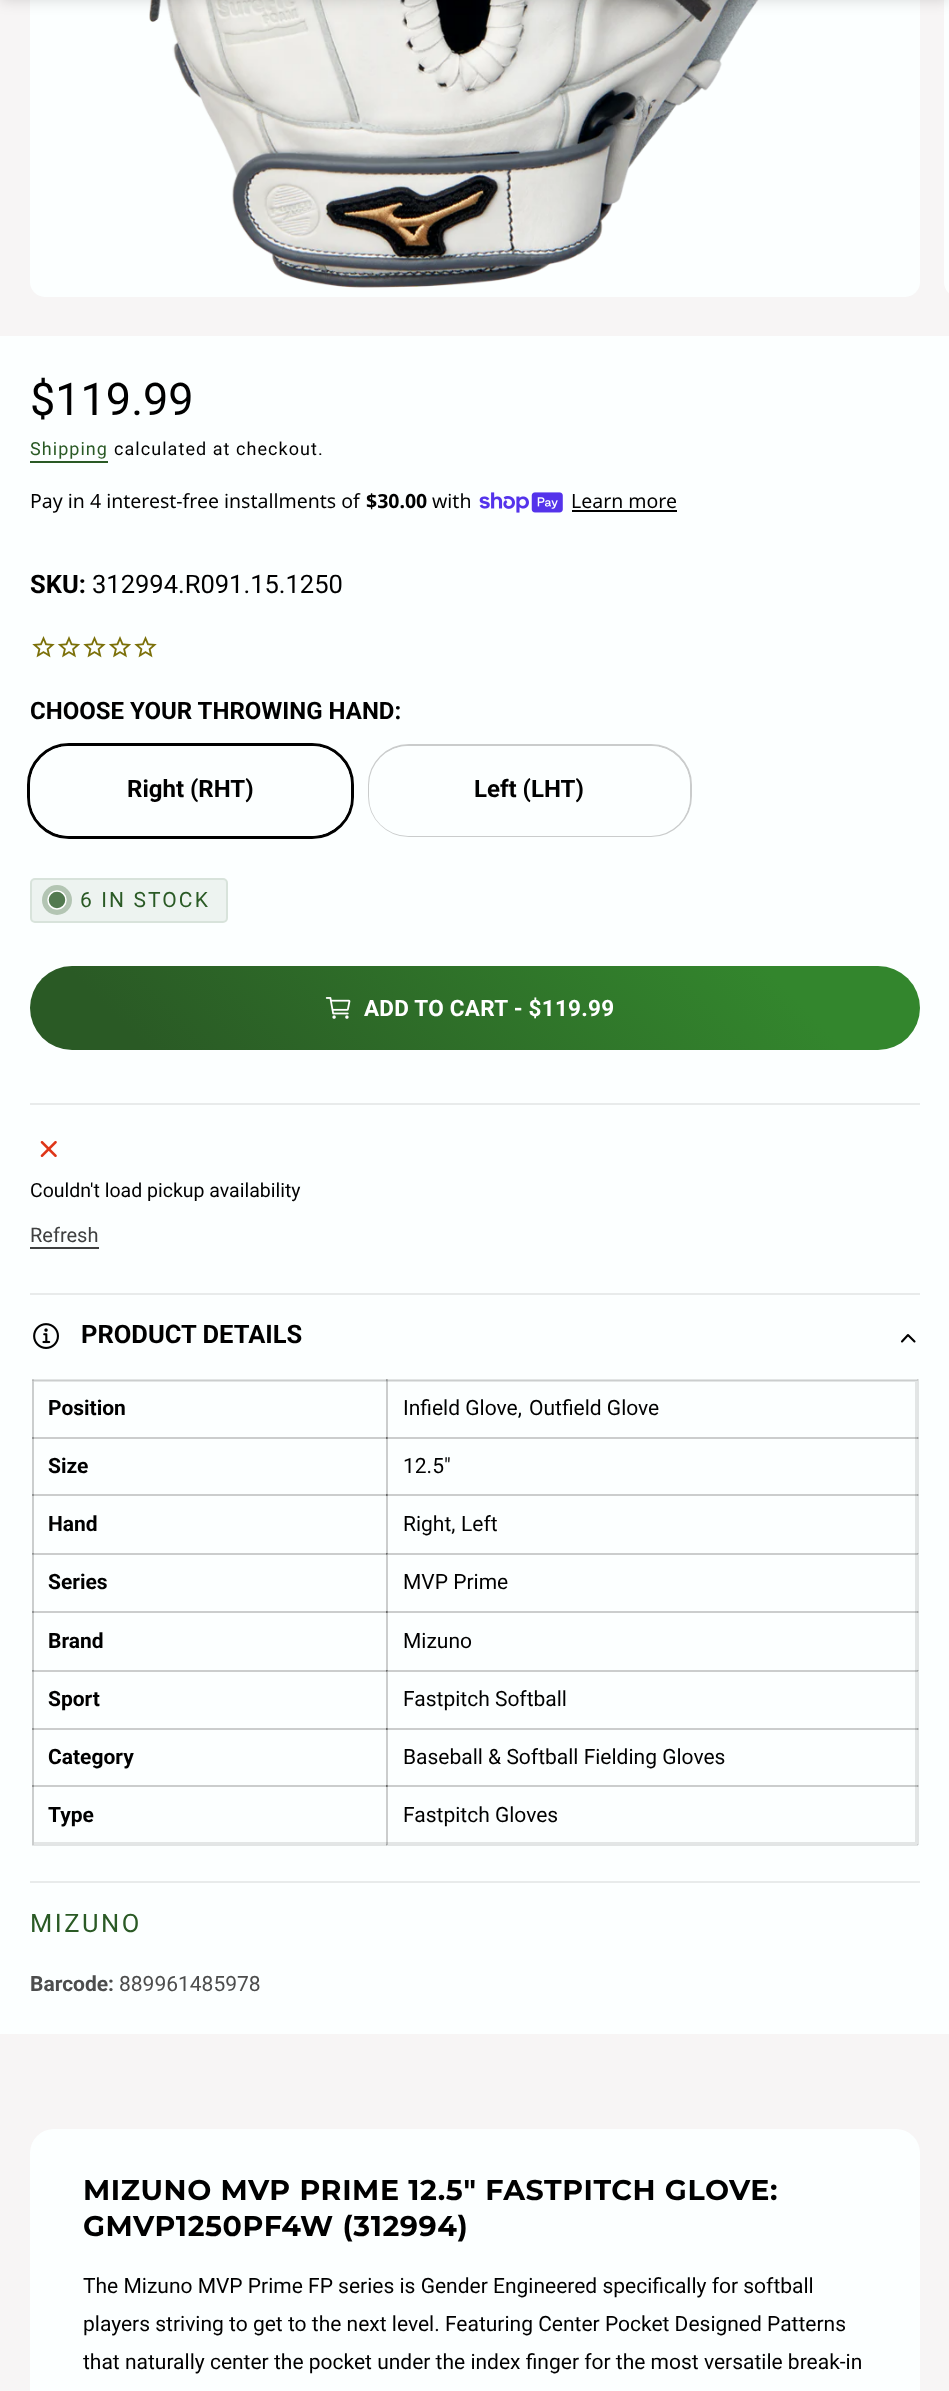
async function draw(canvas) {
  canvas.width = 949;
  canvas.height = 2391;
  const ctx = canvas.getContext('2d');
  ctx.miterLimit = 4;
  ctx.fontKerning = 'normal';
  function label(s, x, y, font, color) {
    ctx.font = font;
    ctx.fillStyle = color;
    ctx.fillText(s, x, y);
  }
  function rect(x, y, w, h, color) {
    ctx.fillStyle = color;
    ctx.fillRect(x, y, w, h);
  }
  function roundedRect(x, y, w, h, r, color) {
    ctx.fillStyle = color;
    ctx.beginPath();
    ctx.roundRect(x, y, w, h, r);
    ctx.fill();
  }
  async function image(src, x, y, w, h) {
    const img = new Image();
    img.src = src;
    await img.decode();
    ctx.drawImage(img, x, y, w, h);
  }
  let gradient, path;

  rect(0, 0, 949, 2391, '#f7f5f5');
  roundedRect(30, -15, 890, 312, 15, '#fcffff');
  await image('assets/img1.png', 149, 0, 610, 288);
  path = new Path2D('M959-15H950V297H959C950.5 297 944 290.5 944 282V0C944-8.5 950.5-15 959-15Z');
  ctx.fill(path);
  ctx.fillStyle = '#00000026';
  ctx.filter = 'blur(7.5px)';
  ctx.beginPath();
  ctx.rect(0, -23, 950, 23);
  ctx.fill();
  ctx.filter = 'none';
  rect(0, 336, 949, 1698, '#fcffff');
  label('$119.99', 30, 415, '45px Roboto', '#000');
  ctx.letterSpacing = '1.05px';
  label('Shipping', 30, 455, '18px Roboto', '#2a5a25');
  rect(30, 461, 78, 2, '#2a5a25');
  label('calculated at checkout.', 114, 455, '18px Roboto', '#000');
  ctx.letterSpacing = '0px';
  label('Pay in 4 interest-free installments of', 30, 508, '19.5px Noto Sans', '#000');
  label('$30.00', 366, 508, 'bold 19.5px Noto Sans', '#000');
  label('with', 432, 508, '19.5px Noto Sans', '#000');
  await image('assets/img2.png', 479, 492, 84, 21);
  label('Learn more', 571, 508, '19.5px Noto Sans', '#000');
  rect(572, 510, 105, 2, '#000');
  label('SKU:', 30, 593, 'bold 25.5px Roboto', '#000');
  label('312994.R091.15.1250', 92, 593, '25.5px Roboto', '#000');
  await image('assets/img3.png', 32, 636, 23, 22);
  await image('assets/img4.png', 57, 636, 24, 22);
  await image('assets/img3.png', 83, 636, 23, 22);
  await image('assets/img4.png', 108, 636, 24, 22);
  await image('assets/img3.png', 134, 636, 23, 22);
  label('CHOOSE YOUR THROWING HAND:', 30, 719, 'bold 24px Roboto', '#000');
  ctx.beginPath();
  ctx.roundRect(28.5, 744.5, 324, 93, 40.5);
  ctx.strokeStyle = '#000';
  ctx.lineWidth = 3;
  ctx.stroke();
  roundedRect(30, 746, 321, 90, 39, '#fcffff');
  label('Right (RHT)', 127, 797, 'bold 24px Roboto', '#000');
  ctx.beginPath();
  ctx.roundRect(369, 745, 322, 91, 40);
  ctx.strokeStyle = '#cacccc';
  ctx.lineWidth = 2;
  ctx.stroke();
  roundedRect(369, 746, 321, 90, 39, '#fcffff');
  label('Left (LHT)', 474, 797, 'bold 24px Roboto', '#000');
  roundedRect(30, 878, 198, 45, 5, '#edf3f0');
  ctx.beginPath();
  ctx.roundRect(31, 879, 196, 43, 4);
  ctx.strokeStyle = '#2a5a251a';
  ctx.stroke();
  ctx.fillStyle = '#b3c5b3';
  ctx.beginPath();
  ctx.arc(57, 900, 15, 0, 2 * Math.PI);
  ctx.fill();
  ctx.fillStyle = '#537a50';
  ctx.beginPath();
  ctx.arc(57, 900, 9, 0, 2 * Math.PI);
  ctx.fill();
  ctx.strokeStyle = '#fff';
  ctx.lineWidth = 1.5;
  ctx.stroke();
  ctx.letterSpacing = '2.1px';
  label('6 IN STOCK', 80, 907, '21px Roboto', '#2a5a25');
  gradient = ctx.createLinearGradient(224, 1251, 726, 765);
  gradient.addColorStop(0.12, '#2a5a25');
  gradient.addColorStop(0.84, '#33862d');
  ctx.fillStyle = gradient;
  ctx.beginPath();
  ctx.roundRect(30, 966, 890, 84, 42);
  ctx.fill();
  await image('assets/img5.png', 325, 997, 26, 22);
  ctx.letterSpacing = '0.25px';
  label('ADD TO CART - $119.99', 364, 1016, 'bold 22.5px Roboto', '#fff');
  rect(30, 1103, 890, 2, '#e8ebeb');
  await image('assets/img6.png', 40, 1140, 18, 18);
  ctx.letterSpacing = '0px';
  label('Couldn\'t load pickup availability', 30, 1197, '19.5px Roboto', '#000');
  label('Refresh', 30, 1242, '20px Roboto', '#3f4040');
  rect(30, 1247, 69, 2, '#3f4040');
  rect(30, 1293, 890, 2, '#e8ebeb');
  rect(30, 1881, 890, 2, '#e8ebeb');
  await image('assets/img7.png', 33, 1323, 26, 26);
  label('PRODUCT DETAILS', 81, 1343, 'bold 25.5px Roboto', '#000');
  path = new Path2D('M914.5 1341.5L908 1335L902 1341.5');
  ctx.strokeStyle = '#000';
  ctx.lineWidth = 2.1;
  ctx.lineCap = 'round';
  ctx.lineJoin = 'round';
  ctx.stroke(path);
  ctx.strokeStyle = '#e3e6e6';
  ctx.lineWidth = 2;
  ctx.lineJoin = 'miter';
  ctx.strokeRect(33, 1381, 883, 462);
  rect(386, 1379, 532, 2, '#0000001a');
  rect(386, 1437, 532, 2, '#0000001a');
  rect(386, 1494, 532, 2, '#0000001a');
  rect(386, 1553, 532, 2, '#0000001a');
  rect(386, 1611, 532, 2, '#0000001a');
  rect(386, 1670, 532, 2, '#0000001a');
  rect(386, 1728, 532, 2, '#0000001a');
  rect(386, 1785, 532, 2, '#0000001a');
  rect(917, 1785, 2, 60, '#0000001a');
  rect(917, 1728, 2, 59, '#0000001a');
  rect(917, 1670, 2, 60, '#0000001a');
  rect(917, 1611, 2, 60, '#0000001a');
  rect(917, 1553, 2, 60, '#0000001a');
  rect(917, 1494, 2, 60, '#0000001a');
  rect(917, 1437, 2, 59, '#0000001a');
  rect(917, 1379, 2, 60, '#0000001a');
  rect(386, 1844, 532, 2, '#0000001a');
  rect(386, 1785, 2, 60, '#0000001a');
  rect(32, 1785, 355, 2, '#0000001a');
  rect(386, 1785, 2, 60, '#0000001a');
  rect(386, 1785, 532, 2, '#0000001a');
  rect(386, 1728, 2, 59, '#0000001a');
  rect(32, 1728, 355, 2, '#0000001a');
  rect(386, 1728, 2, 59, '#0000001a');
  rect(386, 1728, 532, 2, '#0000001a');
  rect(386, 1670, 2, 60, '#0000001a');
  rect(32, 1670, 355, 2, '#0000001a');
  rect(386, 1670, 2, 60, '#0000001a');
  rect(386, 1670, 532, 2, '#0000001a');
  rect(386, 1611, 2, 60, '#0000001a');
  rect(32, 1611, 355, 2, '#0000001a');
  rect(386, 1611, 2, 60, '#0000001a');
  rect(386, 1611, 532, 2, '#0000001a');
  rect(386, 1553, 2, 60, '#0000001a');
  rect(32, 1553, 355, 2, '#0000001a');
  rect(386, 1553, 2, 60, '#0000001a');
  rect(386, 1553, 532, 2, '#0000001a');
  rect(386, 1494, 2, 60, '#0000001a');
  rect(32, 1494, 355, 2, '#0000001a');
  rect(386, 1494, 2, 60, '#0000001a');
  rect(386, 1494, 532, 2, '#0000001a');
  rect(386, 1437, 2, 59, '#0000001a');
  rect(32, 1437, 355, 2, '#0000001a');
  rect(386, 1437, 2, 59, '#0000001a');
  rect(386, 1437, 532, 2, '#0000001a');
  rect(386, 1379, 2, 60, '#0000001a');
  rect(32, 1379, 355, 2, '#0000001a');
  rect(386, 1379, 2, 60, '#0000001a');
  rect(32, 1844, 355, 2, '#0000001a');
  rect(32, 1785, 2, 60, '#0000001a');
  rect(32, 1785, 355, 2, '#0000001a');
  rect(32, 1728, 2, 59, '#0000001a');
  rect(32, 1728, 355, 2, '#0000001a');
  rect(32, 1670, 2, 60, '#0000001a');
  rect(32, 1670, 355, 2, '#0000001a');
  rect(32, 1611, 2, 60, '#0000001a');
  rect(32, 1611, 355, 2, '#0000001a');
  rect(32, 1553, 2, 60, '#0000001a');
  rect(32, 1553, 355, 2, '#0000001a');
  rect(32, 1494, 2, 60, '#0000001a');
  rect(32, 1494, 355, 2, '#0000001a');
  rect(32, 1437, 2, 59, '#0000001a');
  rect(32, 1437, 355, 2, '#0000001a');
  rect(32, 1379, 2, 60, '#0000001a');
  label('Position', 48, 1415, 'bold 21px Roboto', '#000');
  label('Infield Glove,', 403, 1415, '21px Roboto', '#000');
  label('Outfield Glove', 529, 1415, '21px Roboto', '#000');
  label('Size', 48, 1473, 'bold 21px Roboto', '#000');
  label('12.5"', 403, 1473, '21px Roboto', '#000');
  label('Hand', 48, 1531, 'bold 21px Roboto', '#000');
  label('Right,', 403, 1531, '21px Roboto', '#000');
  label('Left', 461, 1531, '21px Roboto', '#000');
  label('Series', 48, 1589, 'bold 21px Roboto', '#000');
  label('MVP Prime', 403, 1589, '21px Roboto', '#000');
  label('Brand', 48, 1648, 'bold 21px Roboto', '#000');
  label('Mizuno', 403, 1648, '21px Roboto', '#000');
  label('Sport', 48, 1706, 'bold 21px Roboto', '#000');
  label('Fastpitch Softball', 403, 1706, '21px Roboto', '#000');
  label('Category', 48, 1764, 'bold 21px Roboto', '#000');
  label('Baseball & Softball Fielding Gloves', 403, 1764, '21px Roboto', '#000');
  label('Type', 48, 1822, 'bold 21px Roboto', '#000');
  label('Fastpitch Gloves', 403, 1822, '21px Roboto', '#000');
  ctx.letterSpacing = '2.5px';
  label('MIZUNO', 30, 1932, '25.5px Roboto', '#2a5a25');
  ctx.letterSpacing = '0px';
  label('Barcode:', 30, 1991, 'bold 21px Roboto', '#4c4d4d');
  label('889961485978', 119, 1991, '21px Roboto', '#4c4d4d');
  roundedRect(30, 2129, 890, 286, 24, '#fcffff');
  ctx.letterSpacing = '0.6px';
  label('MIZUNO MVP PRIME 12.5" FASTPITCH GLOVE:', 83, 2200, 'bold 28.5px Montserrat', '#000');
  label('GMVP1250PF4W (312994)', 83, 2236, 'bold 28.5px Montserrat', '#000');
  ctx.letterSpacing = '0px';
  label('The Mizuno MVP Prime FP series is Gender Engineered specifically for softball', 83, 2293, '21px Roboto', '#000');
  label('players striving to get to the next level. Featuring Center Pocket Designed Patterns', 83, 2331, '21px Roboto', '#000');
  label('that naturally center the pocket under the index finger for the most versatile break-in', 83, 2369, '21px Roboto', '#000');
}

draw(document.querySelector('canvas'));
